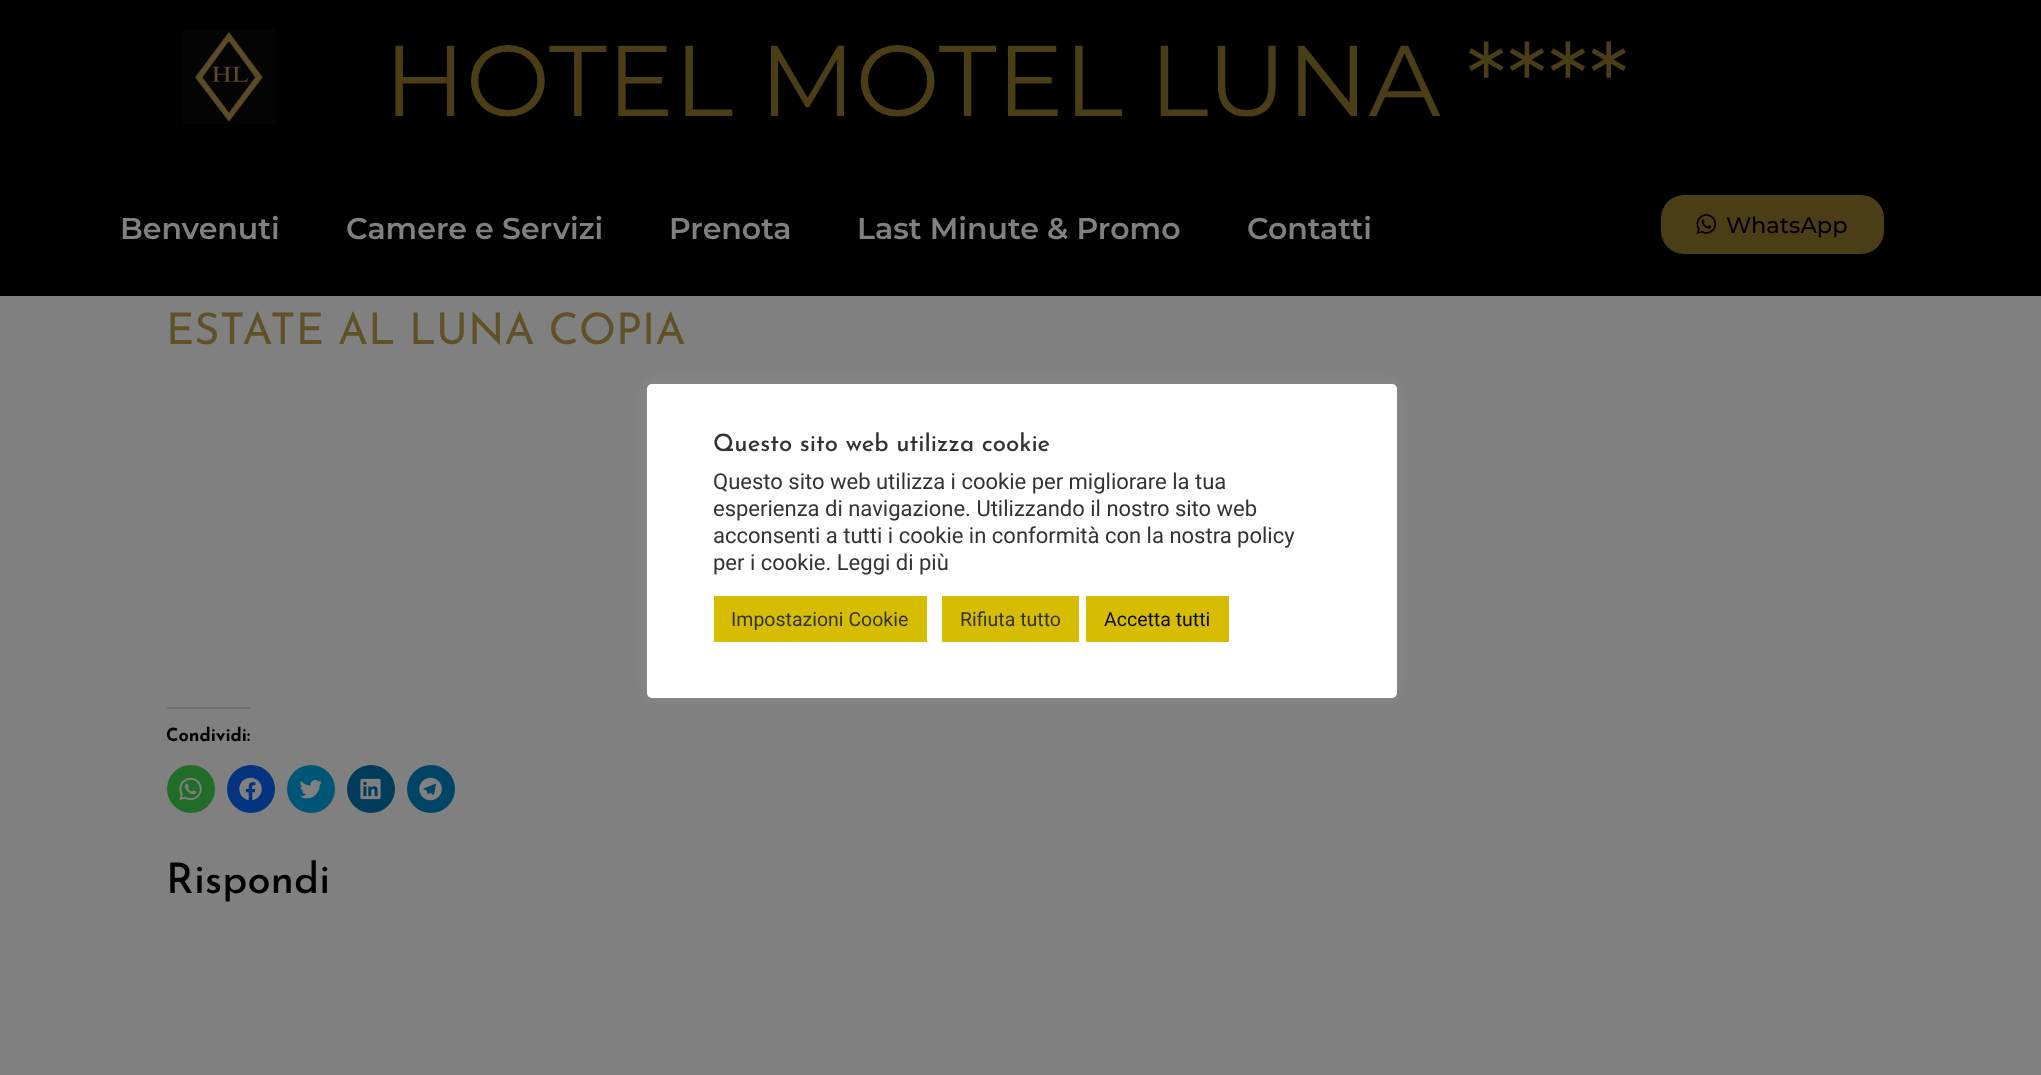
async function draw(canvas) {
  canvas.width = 2041;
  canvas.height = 1075;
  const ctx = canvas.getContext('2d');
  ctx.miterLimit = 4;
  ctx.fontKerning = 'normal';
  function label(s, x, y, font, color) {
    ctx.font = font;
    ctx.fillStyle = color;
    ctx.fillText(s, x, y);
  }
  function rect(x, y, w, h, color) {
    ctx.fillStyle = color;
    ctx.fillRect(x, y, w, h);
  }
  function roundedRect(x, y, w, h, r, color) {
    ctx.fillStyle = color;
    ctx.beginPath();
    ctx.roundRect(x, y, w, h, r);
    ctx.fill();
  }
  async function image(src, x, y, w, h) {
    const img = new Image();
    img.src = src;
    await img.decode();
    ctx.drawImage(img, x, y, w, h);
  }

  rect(0, 0, 2041, 1075, '#808080');
  rect(0, 0, 2041, 296, '#000');
  await image('assets/img1.png', 182, 30, 94, 94);
  label('HOTEL MOTEL LUNA ****', 384, 116, '100.5px Montserrat', '#4b3e16');
  label('Benvenuti', 120, 239, '600 30px Montserrat', '#808080');
  label('Camere e Servizi', 346, 239, '600 30px Montserrat', '#808080');
  label('Prenota', 669, 239, '600 30px Montserrat', '#808080');
  label('Last Minute & Promo', 857, 239, '600 30px Montserrat', '#808080');
  label('Contatti', 1247, 239, '600 30px Montserrat', '#808080');
  roundedRect(1661, 195, 223, 59, 23, '#4b3e16');
  await image('assets/img2.png', 1696, 214, 21, 20);
  label('WhatsApp', 1726, 233, '500 22.5px Montserrat', '#000');
  label('ESTATE AL LUNA COPIA', 166, 344, '43.5px Josefin Sans', '#605228');
  rect(167, 707, 84, 2, '#6e6e6f');
  label('Condividi:', 166, 741, 'bold 18px Josefin Sans', '#000');
  ctx.fillStyle = '#226c2a';
  ctx.beginPath();
  ctx.arc(191, 789, 24, 0, 2 * Math.PI);
  ctx.fill();
  await image('assets/img3.png', 179, 777, 23, 24);
  ctx.fillStyle = '#043380';
  ctx.beginPath();
  ctx.arc(251, 789, 24, 0, 2 * Math.PI);
  ctx.fill();
  await image('assets/img4.png', 239, 777, 23, 24);
  ctx.fillStyle = '#005677';
  ctx.beginPath();
  ctx.arc(311, 789, 24, 0, 2 * Math.PI);
  ctx.fill();
  await image('assets/img5.png', 299, 780, 23, 19);
  ctx.fillStyle = '#003c5b';
  ctx.beginPath();
  ctx.arc(371, 789, 24, 0, 2 * Math.PI);
  ctx.fill();
  await image('assets/img6.png', 360, 778, 21, 22);
  ctx.fillStyle = '#046';
  ctx.beginPath();
  ctx.arc(431, 789, 24, 0, 2 * Math.PI);
  ctx.fill();
  await image('assets/img7.png', 419, 777, 23, 24);
  label('Rispondi', 166, 893, '500 42px Josefin Sans', '#000');
  ctx.fillStyle = '#acabab4d';
  ctx.filter = 'blur(7.5px)';
  ctx.beginPath();
  ctx.roundRect(647, 383, 750, 313, 5);
  ctx.fill();
  ctx.filter = 'none';
  roundedRect(647, 384, 750, 314, 5, '#fff');
  label('Questo sito web utilizza cookie', 713, 451, '500 24px Josefin Sans', '#333');
  label('Questo sito web utilizza i cookie per migliorare la tua', 713, 489, '22px Roboto', '#333');
  label('esperienza di navigazione. Utilizzando il nostro sito web', 713, 516, '22px Roboto', '#333');
  label('acconsenti a tutti i cookie in conformità con la nostra policy', 713, 543, '22px Roboto', '#333');
  label('per i cookie. Leggi di più', 713, 570, '22px Roboto', '#333');
  rect(714, 596, 213, 46, '#d6bd02');
  label('Impostazioni Cookie', 731, 626, '19.5px Roboto', '#333');
  rect(942, 596, 137, 46, '#d6bd02');
  label('Rifiuta tutto', 960, 626, '19.5px Roboto', '#333');
  rect(1086, 596, 143, 46, '#d6bd02');
  label('Accetta tutti', 1104, 626, '19.5px Roboto', '#0a0a0a');
}

draw(document.querySelector('canvas'));
